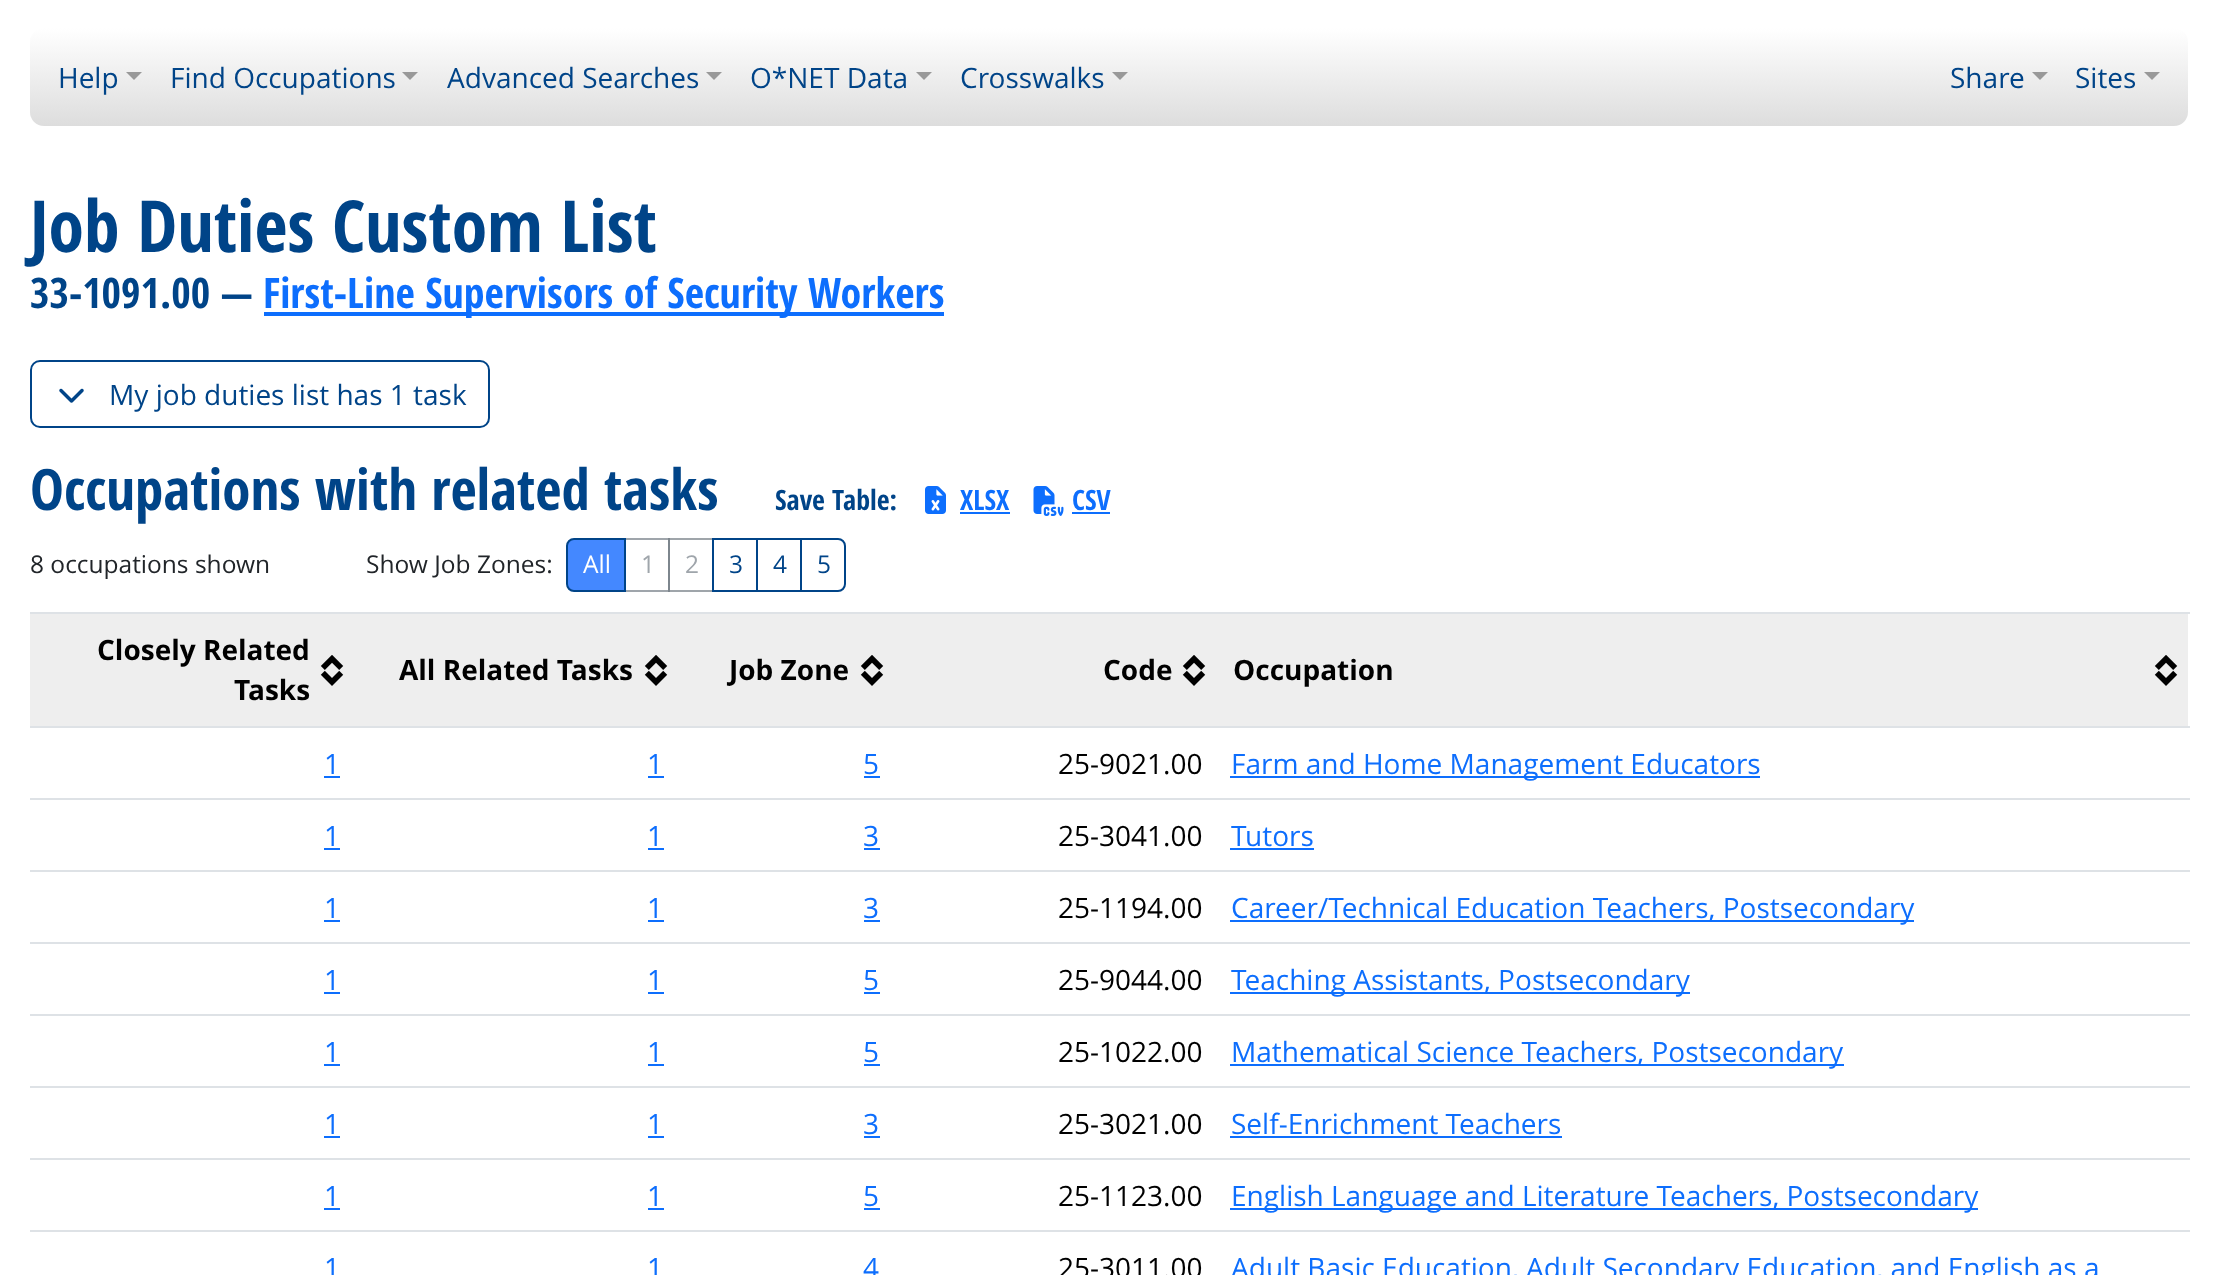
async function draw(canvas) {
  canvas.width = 2218;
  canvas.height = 1275;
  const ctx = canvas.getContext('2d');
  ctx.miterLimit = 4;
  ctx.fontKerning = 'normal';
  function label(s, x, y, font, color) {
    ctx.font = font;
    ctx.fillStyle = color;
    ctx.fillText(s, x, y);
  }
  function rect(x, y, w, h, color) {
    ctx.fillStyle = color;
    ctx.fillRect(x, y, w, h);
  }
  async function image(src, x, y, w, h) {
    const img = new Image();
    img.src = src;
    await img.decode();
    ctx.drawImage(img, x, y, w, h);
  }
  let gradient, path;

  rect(0, 0, 2218, 1275, '#fff');
  gradient = ctx.createLinearGradient(1109, 28, 1109, 126);
  gradient.addColorStop(0, '#fff');
  gradient.addColorStop(1, '#ddd');
  ctx.fillStyle = gradient;
  ctx.beginPath();
  ctx.roundRect(30, 28, 2158, 98, 14);
  ctx.fill();
  label('Help', 58, 88, '28px Open Sans', '#048');
  ctx.fillStyle = '#999';
  path = new Path2D('M126 72H142L134 80Z');
  ctx.fill(path);
  label('Find Occupations', 170, 88, '28px Open Sans', '#048');
  ctx.fillStyle = '#999';
  path = new Path2D('M402 72H418L410 80Z');
  ctx.fill(path);
  label('Advanced Searches', 447, 88, '28px Open Sans', '#048');
  ctx.fillStyle = '#999';
  path = new Path2D('M706 72H722L714 80Z');
  ctx.fill(path);
  label('O*NET Data', 750, 88, '28px Open Sans', '#048');
  ctx.fillStyle = '#999';
  path = new Path2D('M916 72H932L924 80Z');
  ctx.fill(path);
  label('Crosswalks', 960, 88, '28px Open Sans', '#048');
  ctx.fillStyle = '#999';
  path = new Path2D('M1112 72H1128L1120 80Z');
  ctx.fill(path);
  label('Share', 1950, 88, '28px Open Sans', '#048');
  ctx.fillStyle = '#999';
  path = new Path2D('M2032 72H2048L2040 80Z');
  ctx.fill(path);
  label('Sites', 2075, 88, '28px Open Sans', '#048');
  ctx.fillStyle = '#999';
  path = new Path2D('M2144 72H2160L2152 80Z');
  ctx.fill(path);
  label('Job Duties Custom List', 30, 252, 'bold 71.75px Open Sans Condensed', '#048');
  label('33-1091.00 —', 30, 308, 'bold 42px Open Sans Condensed', '#048');
  rect(264, 312, 680, 4, '#0d6efd');
  label('First-Line Supervisors of Security Workers', 263, 308, 'bold 42px Open Sans Condensed', '#0d6efd');
  ctx.beginPath();
  ctx.roundRect(31, 361, 458, 66, 9);
  ctx.strokeStyle = '#048';
  ctx.lineWidth = 2;
  ctx.stroke();
  await image('assets/img1.png', 59, 388, 25, 15);
  label('My job duties list has 1 task', 109, 405, '28px Open Sans', '#048');
  label('Occupations with related tasks', 30, 510, 'bold 57px Open Sans Condensed', '#048');
  label('Save Table:', 775, 510, 'bold 28px Open Sans Condensed', '#048');
  await image('assets/img2.png', 925, 486, 21, 28);
  label('XLSX', 960, 510, 'bold 28px Open Sans Condensed', '#0d6efd');
  rect(960, 512, 50, 2, '#0d6efd');
  await image('assets/img3.png', 1033, 486, 31, 30);
  label('CSV', 1072, 510, 'bold 28px Open Sans Condensed', '#0d6efd');
  rect(1072, 512, 38, 2, '#0d6efd');
  label('8 occupations shown', 30, 573, '24.5px Open Sans', '#212529');
  label('Show Job Zones:', 366, 573, '24.5px Open Sans', '#212529');
  ctx.strokeStyle = '#9fa5ab';
  ctx.strokeRect(625, 539, 44, 52);
  ctx.fillStyle = '#48f';
  ctx.beginPath();
  ctx.roundRect(567, 539, 58, 52, [7, 0, 0, 7]);
  ctx.fill();
  ctx.strokeStyle = '#048';
  ctx.stroke();
  label('All', 583, 573, '24.5px Open Sans', '#fff');
  label('1', 641, 573, '24.5px Open Sans', '#9fa5ab');
  ctx.strokeStyle = '#6c757da6';
  ctx.strokeRect(669, 539, 44, 52);
  label('2', 685, 573, '24.5px Open Sans', '#9fa5ab');
  ctx.strokeStyle = '#048';
  ctx.strokeRect(713, 539, 44, 52);
  label('3', 729, 573, '24.5px Open Sans', '#048');
  ctx.strokeRect(757, 539, 44, 52);
  label('4', 773, 573, '24.5px Open Sans', '#048');
  ctx.beginPath();
  ctx.roundRect(801, 539, 44, 52, [0, 7, 7, 0]);
  ctx.stroke();
  label('5', 817, 573, '24.5px Open Sans', '#048');
  rect(30, 614, 2158, 112, '#eee');
  await image('assets/img4.png', 320, 655, 24, 31);
  label('Closely Related', 97, 660, 'bold 28px Open Sans', '#000');
  label('Tasks', 234, 700, 'bold 28px Open Sans', '#000');
  await image('assets/img4.png', 644, 655, 24, 31);
  label('All Related Tasks', 399, 680, 'bold 28px Open Sans', '#000');
  await image('assets/img4.png', 860, 655, 24, 31);
  label('Job Zone', 729, 680, 'bold 28px Open Sans', '#000');
  await image('assets/img4.png', 1182, 655, 24, 31);
  label('Code', 1103, 680, 'bold 28px Open Sans', '#000');
  await image('assets/img4.png', 2154, 655, 24, 31);
  rect(30, 612, 2160, 2, '#dee2e6');
  rect(30, 726, 2160, 2, '#dee2e6');
  label('Occupation', 1233, 680, 'bold 28px Open Sans', '#000');
  label('1', 324, 774, '28px Open Sans', '#0d6efd');
  rect(324, 776, 16, 2, '#0d6efd');
  label('1', 647, 774, '28px Open Sans', '#0d6efd');
  rect(648, 776, 16, 2, '#0d6efd');
  label('5', 863, 774, '28px Open Sans', '#0d6efd');
  rect(864, 776, 16, 2, '#0d6efd');
  label('25-9021.00', 1058, 774, '28px Open Sans', '#000');
  rect(30, 798, 2160, 2, '#dee2e6');
  rect(1230, 776, 530, 2, '#0d6efd');
  label('Farm and Home Management Educators', 1231, 774, '28px Open Sans', '#0d6efd');
  label('1', 324, 846, '28px Open Sans', '#0d6efd');
  rect(324, 848, 16, 2, '#0d6efd');
  label('1', 647, 846, '28px Open Sans', '#0d6efd');
  rect(648, 848, 16, 2, '#0d6efd');
  label('3', 863, 846, '28px Open Sans', '#0d6efd');
  rect(864, 848, 16, 2, '#0d6efd');
  label('25-3041.00', 1058, 846, '28px Open Sans', '#000');
  rect(30, 870, 2160, 2, '#dee2e6');
  label('Tutors', 1231, 846, '28px Open Sans', '#0d6efd');
  rect(1230, 848, 84, 2, '#0d6efd');
  label('1', 324, 918, '28px Open Sans', '#0d6efd');
  rect(324, 920, 16, 2, '#0d6efd');
  label('1', 647, 918, '28px Open Sans', '#0d6efd');
  rect(648, 920, 16, 2, '#0d6efd');
  label('3', 863, 918, '28px Open Sans', '#0d6efd');
  rect(864, 920, 16, 2, '#0d6efd');
  label('25-1194.00', 1058, 918, '28px Open Sans', '#000');
  rect(30, 942, 2160, 2, '#dee2e6');
  rect(1230, 920, 684, 2, '#0d6efd');
  label('Career/Technical Education Teachers, Postsecondary', 1231, 918, '28px Open Sans', '#0d6efd');
  label('1', 324, 990, '28px Open Sans', '#0d6efd');
  rect(324, 992, 16, 2, '#0d6efd');
  label('1', 647, 990, '28px Open Sans', '#0d6efd');
  rect(648, 992, 16, 2, '#0d6efd');
  label('5', 863, 990, '28px Open Sans', '#0d6efd');
  rect(864, 992, 16, 2, '#0d6efd');
  label('25-9044.00', 1058, 990, '28px Open Sans', '#000');
  rect(30, 1014, 2160, 2, '#dee2e6');
  rect(1230, 992, 460, 2, '#0d6efd');
  label('Teaching Assistants, Postsecondary', 1231, 990, '28px Open Sans', '#0d6efd');
  label('1', 324, 1062, '28px Open Sans', '#0d6efd');
  rect(324, 1064, 16, 2, '#0d6efd');
  label('1', 647, 1062, '28px Open Sans', '#0d6efd');
  rect(648, 1064, 16, 2, '#0d6efd');
  label('5', 863, 1062, '28px Open Sans', '#0d6efd');
  rect(864, 1064, 16, 2, '#0d6efd');
  label('25-1022.00', 1058, 1062, '28px Open Sans', '#000');
  rect(30, 1086, 2160, 2, '#dee2e6');
  rect(1230, 1064, 614, 2, '#0d6efd');
  label('Mathematical Science Teachers, Postsecondary', 1231, 1062, '28px Open Sans', '#0d6efd');
  label('1', 324, 1134, '28px Open Sans', '#0d6efd');
  rect(324, 1136, 16, 2, '#0d6efd');
  label('1', 647, 1134, '28px Open Sans', '#0d6efd');
  rect(648, 1136, 16, 2, '#0d6efd');
  label('3', 863, 1134, '28px Open Sans', '#0d6efd');
  rect(864, 1136, 16, 2, '#0d6efd');
  label('25-3021.00', 1058, 1134, '28px Open Sans', '#000');
  rect(30, 1158, 2160, 2, '#dee2e6');
  label('Self-Enrichment Teachers', 1231, 1134, '28px Open Sans', '#0d6efd');
  rect(1230, 1136, 332, 2, '#0d6efd');
  label('1', 324, 1206, '28px Open Sans', '#0d6efd');
  rect(324, 1208, 16, 2, '#0d6efd');
  label('1', 647, 1206, '28px Open Sans', '#0d6efd');
  rect(648, 1208, 16, 2, '#0d6efd');
  label('5', 863, 1206, '28px Open Sans', '#0d6efd');
  rect(864, 1208, 16, 2, '#0d6efd');
  label('25-1123.00', 1058, 1206, '28px Open Sans', '#000');
  rect(30, 1230, 2160, 2, '#dee2e6');
  rect(1230, 1208, 748, 2, '#0d6efd');
  label('English Language and Literature Teachers, Postsecondary', 1231, 1206, '28px Open Sans', '#0d6efd');
  label('1', 324, 1278, '28px Open Sans', '#0d6efd');
  label('1', 647, 1278, '28px Open Sans', '#0d6efd');
  label('4', 863, 1278, '28px Open Sans', '#0d6efd');
  label('25-3011.00', 1058, 1278, '28px Open Sans', '#000');
  label('Adult Basic Education, Adult Secondary Education, and English as a', 1231, 1278, '28px Open Sans', '#0d6efd');
}

draw(document.querySelector('canvas'));
